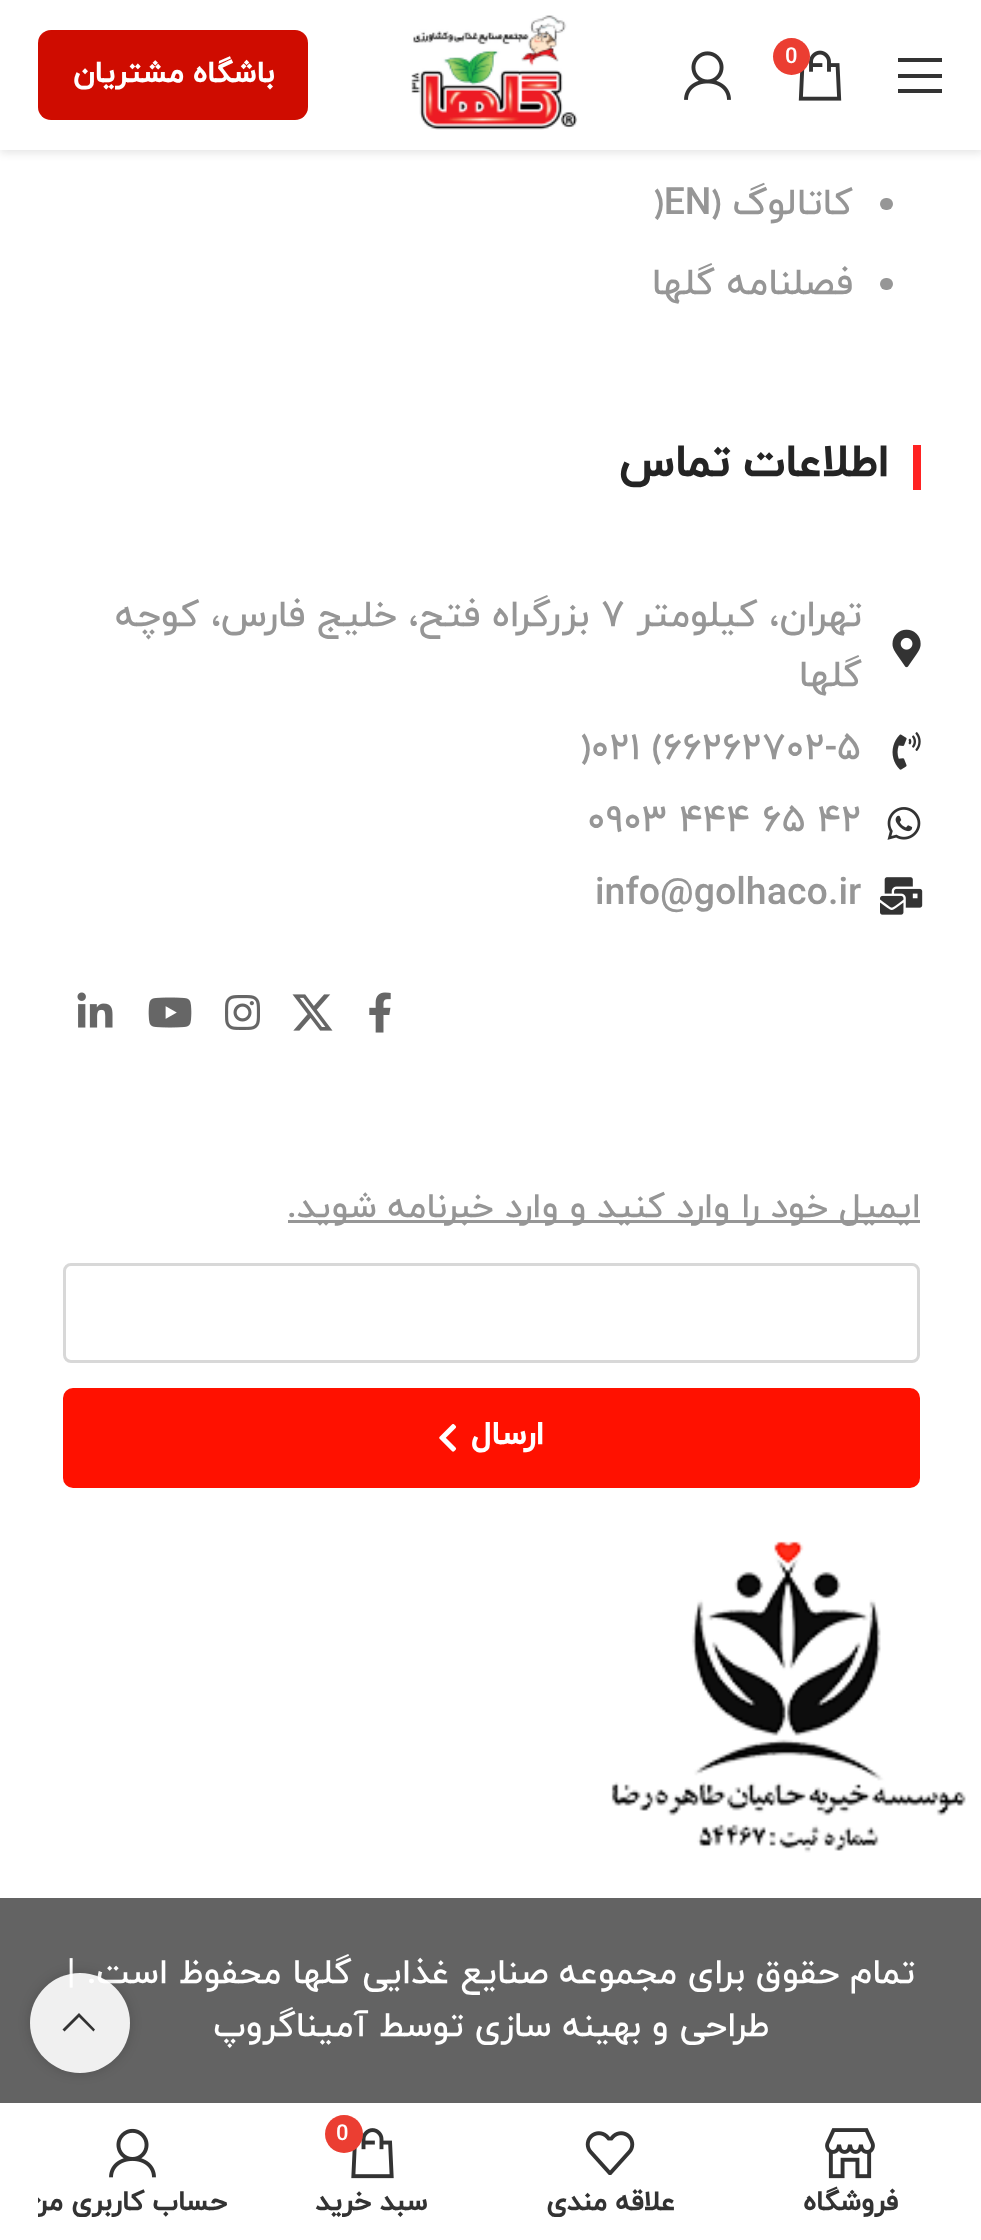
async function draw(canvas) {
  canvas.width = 981;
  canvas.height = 2240;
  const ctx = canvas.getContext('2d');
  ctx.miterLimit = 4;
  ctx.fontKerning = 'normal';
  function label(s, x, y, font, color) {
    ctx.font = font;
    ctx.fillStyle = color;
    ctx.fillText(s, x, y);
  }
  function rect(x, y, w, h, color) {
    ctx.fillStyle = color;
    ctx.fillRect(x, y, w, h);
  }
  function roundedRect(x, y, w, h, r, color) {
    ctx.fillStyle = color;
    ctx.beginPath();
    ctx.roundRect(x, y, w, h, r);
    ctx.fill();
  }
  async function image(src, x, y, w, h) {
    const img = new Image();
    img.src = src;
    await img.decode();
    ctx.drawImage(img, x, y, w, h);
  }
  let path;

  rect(0, 0, 981, 2240, '#fff');
  ctx.fillStyle = '#0000001a';
  ctx.filter = 'blur(4px)';
  ctx.beginPath();
  ctx.rect(0, 3, 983, 150);
  ctx.fill();
  ctx.filter = 'none';
  rect(0, 0, 981, 150, '#fff');
  ctx.fillStyle = '#333';
  path = new Path2D('M898 62H942V58H898ZM898 78H942V74H898ZM898 93H942V89H898Z');
  ctx.fill(path);
  await image('assets/img1.png', 798, 50, 44, 51);
  ctx.fillStyle = '#eb3e32';
  ctx.beginPath();
  ctx.arc(791.5, 56.5, 18.5, 0, 2 * Math.PI);
  ctx.fill();
  label('0', 785, 63, '500 22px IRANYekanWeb', '#fff');
  await image('assets/img2.png', 684, 51, 47, 49);
  await image('assets/img3.png', 411, 15, 167, 115);
  roundedRect(38, 30, 270, 90, 13, '#cf0c00');
  ctx.direction = 'rtl';
  label('باشگاه مشتریان', 274, 82, 'bold 30px IRANYekanWeb', '#fff');
  roundedRect(880, 198, 13, 12, 6, '#969696');
  label('کاتالوگ (', 853, 214, '500 37.5px IRANYekanWeb', '#969696');
  ctx.direction = 'ltr';
  label(')EN', 653, 214, '500 37.5px IRANYekanWeb', '#969696');
  roundedRect(880, 278, 13, 12, 6, '#969696');
  ctx.direction = 'rtl';
  label('فصلنامه گلها', 853, 294, '500 37.5px IRANYekanWeb', '#969696');
  rect(913, 445, 8, 45, '#f22');
  label('اطلاعات تماس', 889, 476, 'bold 45px IRANYekanWeb', '#242424');
  await image('assets/img4.png', 892, 629, 29, 39);
  label('تهران، کیلومتر', 862, 626, '500 37.5px IRANYekanWeb', '#969696');
  ctx.direction = 'ltr';
  label('۷', 601, 626, '500 37.5px IRANYekanWeb', '#969696');
  ctx.direction = 'rtl';
  label('بزرگراه فتح، خلیج فارس، کوچه', 589, 626, '500 37.5px IRANYekanWeb', '#969696');
  label('گلها', 862, 686, '500 37.5px IRANYekanWeb', '#969696');
  await image('assets/img5.png', 892, 732, 29, 38);
  ctx.direction = 'ltr';
  label(')۰۲۱ (۶۶۲۶۲۷۰۲-۵', 580, 759, '500 37.5px IRANYekanWeb', '#969696');
  await image('assets/img6.png', 887, 807, 34, 33);
  label('۰۹۰۳ ۴۴۴ ۶۵ ۴۲', 587, 831, '500 37.5px IRANYekanWeb', '#969696');
  await image('assets/img7.png', 880, 877, 43, 38);
  label('info@golhaco.ir', 595, 904, '500 37.5px IRANYekanWeb', '#969696');
  await image('assets/img8.png', 369, 992, 22, 41);
  await image('assets/img9.png', 292, 994, 41, 37);
  await image('assets/img10.png', 225, 995, 35, 35);
  await image('assets/img11.png', 148, 997, 44, 31);
  await image('assets/img12.png', 77, 992, 36, 36);
  rect(288, 1220, 632, 3, '#969696');
  ctx.direction = 'rtl';
  label('ایمیل خود را وارد کنید و وارد خبرنامه شوید.', 921, 1217, '500 35px IRANYekanWeb', '#969696');
  ctx.beginPath();
  ctx.roundRect(64.5, 1264.5, 854, 97, 6.5);
  ctx.strokeStyle = '#d8d8d8';
  ctx.lineWidth = 3;
  ctx.stroke();
  roundedRect(63, 1388, 857, 100, 10, '#f10');
  label('ارسال', 544, 1444, 'bold 32.5px IRANYekanWeb', '#fff');
  await image('assets/img13.png', 439, 1424, 18, 28);
  await image('assets/img14.png', 611, 1541, 355, 312);
  rect(0, 1898, 981, 205, '#636363');
  label('تمام حقوق برای مجموعه صنایع غذایی گلها محفوظ است. |', 915, 1983, '500 35px IRANYekanWeb', '#fff');
  label('طراحی و بهینه سازی توسط', 769, 2036, '500 35px IRANYekanWeb', '#fff');
  label('آمیناگروپ', 368, 2036, '500 35px IRANYekanWeb', '#fff');
  ctx.save();
  path = new Path2D('M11 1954H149V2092H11ZM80 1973C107.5 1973 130 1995.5 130 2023C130 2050.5 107.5 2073 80 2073C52.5 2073 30 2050.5 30 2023C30 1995.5 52.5 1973 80 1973Z');
  ctx.clip(path, 'evenodd');
  ctx.fillStyle = '#0000002b';
  ctx.filter = 'blur(6px)';
  ctx.beginPath();
  ctx.roundRect(30, 1973, 100, 100, 50);
  ctx.fill();
  ctx.filter = 'none';
  ctx.restore();
  ctx.fillStyle = '#ffffffe6';
  ctx.beginPath();
  ctx.arc(80, 2023, 50, 0, 2 * Math.PI);
  ctx.fill();
  ctx.fillStyle = '#333';
  path = new Path2D('M93.5 2031.5L95 2029.5L79 2013L62.5 2029.5L64.5 2031.5L79 2017Z');
  ctx.fill(path);
  await image('assets/img15.png', 825, 2128, 50, 51);
  label('فروشگاه', 898, 2210, 'bold 27.5px IRANYekanWeb', '#333');
  await image('assets/img16.png', 585, 2131, 50, 44);
  label('علاقه مندی', 675, 2210, 'bold 27.5px IRANYekanWeb', '#333');
  await image('assets/img17.png', 351, 2128, 43, 51);
  ctx.fillStyle = '#eb3e32';
  ctx.beginPath();
  ctx.arc(344, 2134, 19, 0, 2 * Math.PI);
  ctx.fill();
  ctx.direction = 'ltr';
  label('0', 336, 2140, '500 22px IRANYekanWeb', '#fff');
  ctx.direction = 'rtl';
  label('سبد خرید', 427, 2210, 'bold 27.5px IRANYekanWeb', '#333');
  await image('assets/img18.png', 109, 2128, 47, 50);
  ctx.save();
  ctx.beginPath();
  ctx.rect(38, 2188, 190, 32);
  ctx.clip();
  label('حساب کاربری من', 227, 2210, 'bold 27.5px IRANYekanWeb', '#333');
  ctx.restore();
}

draw(document.querySelector('canvas'));
